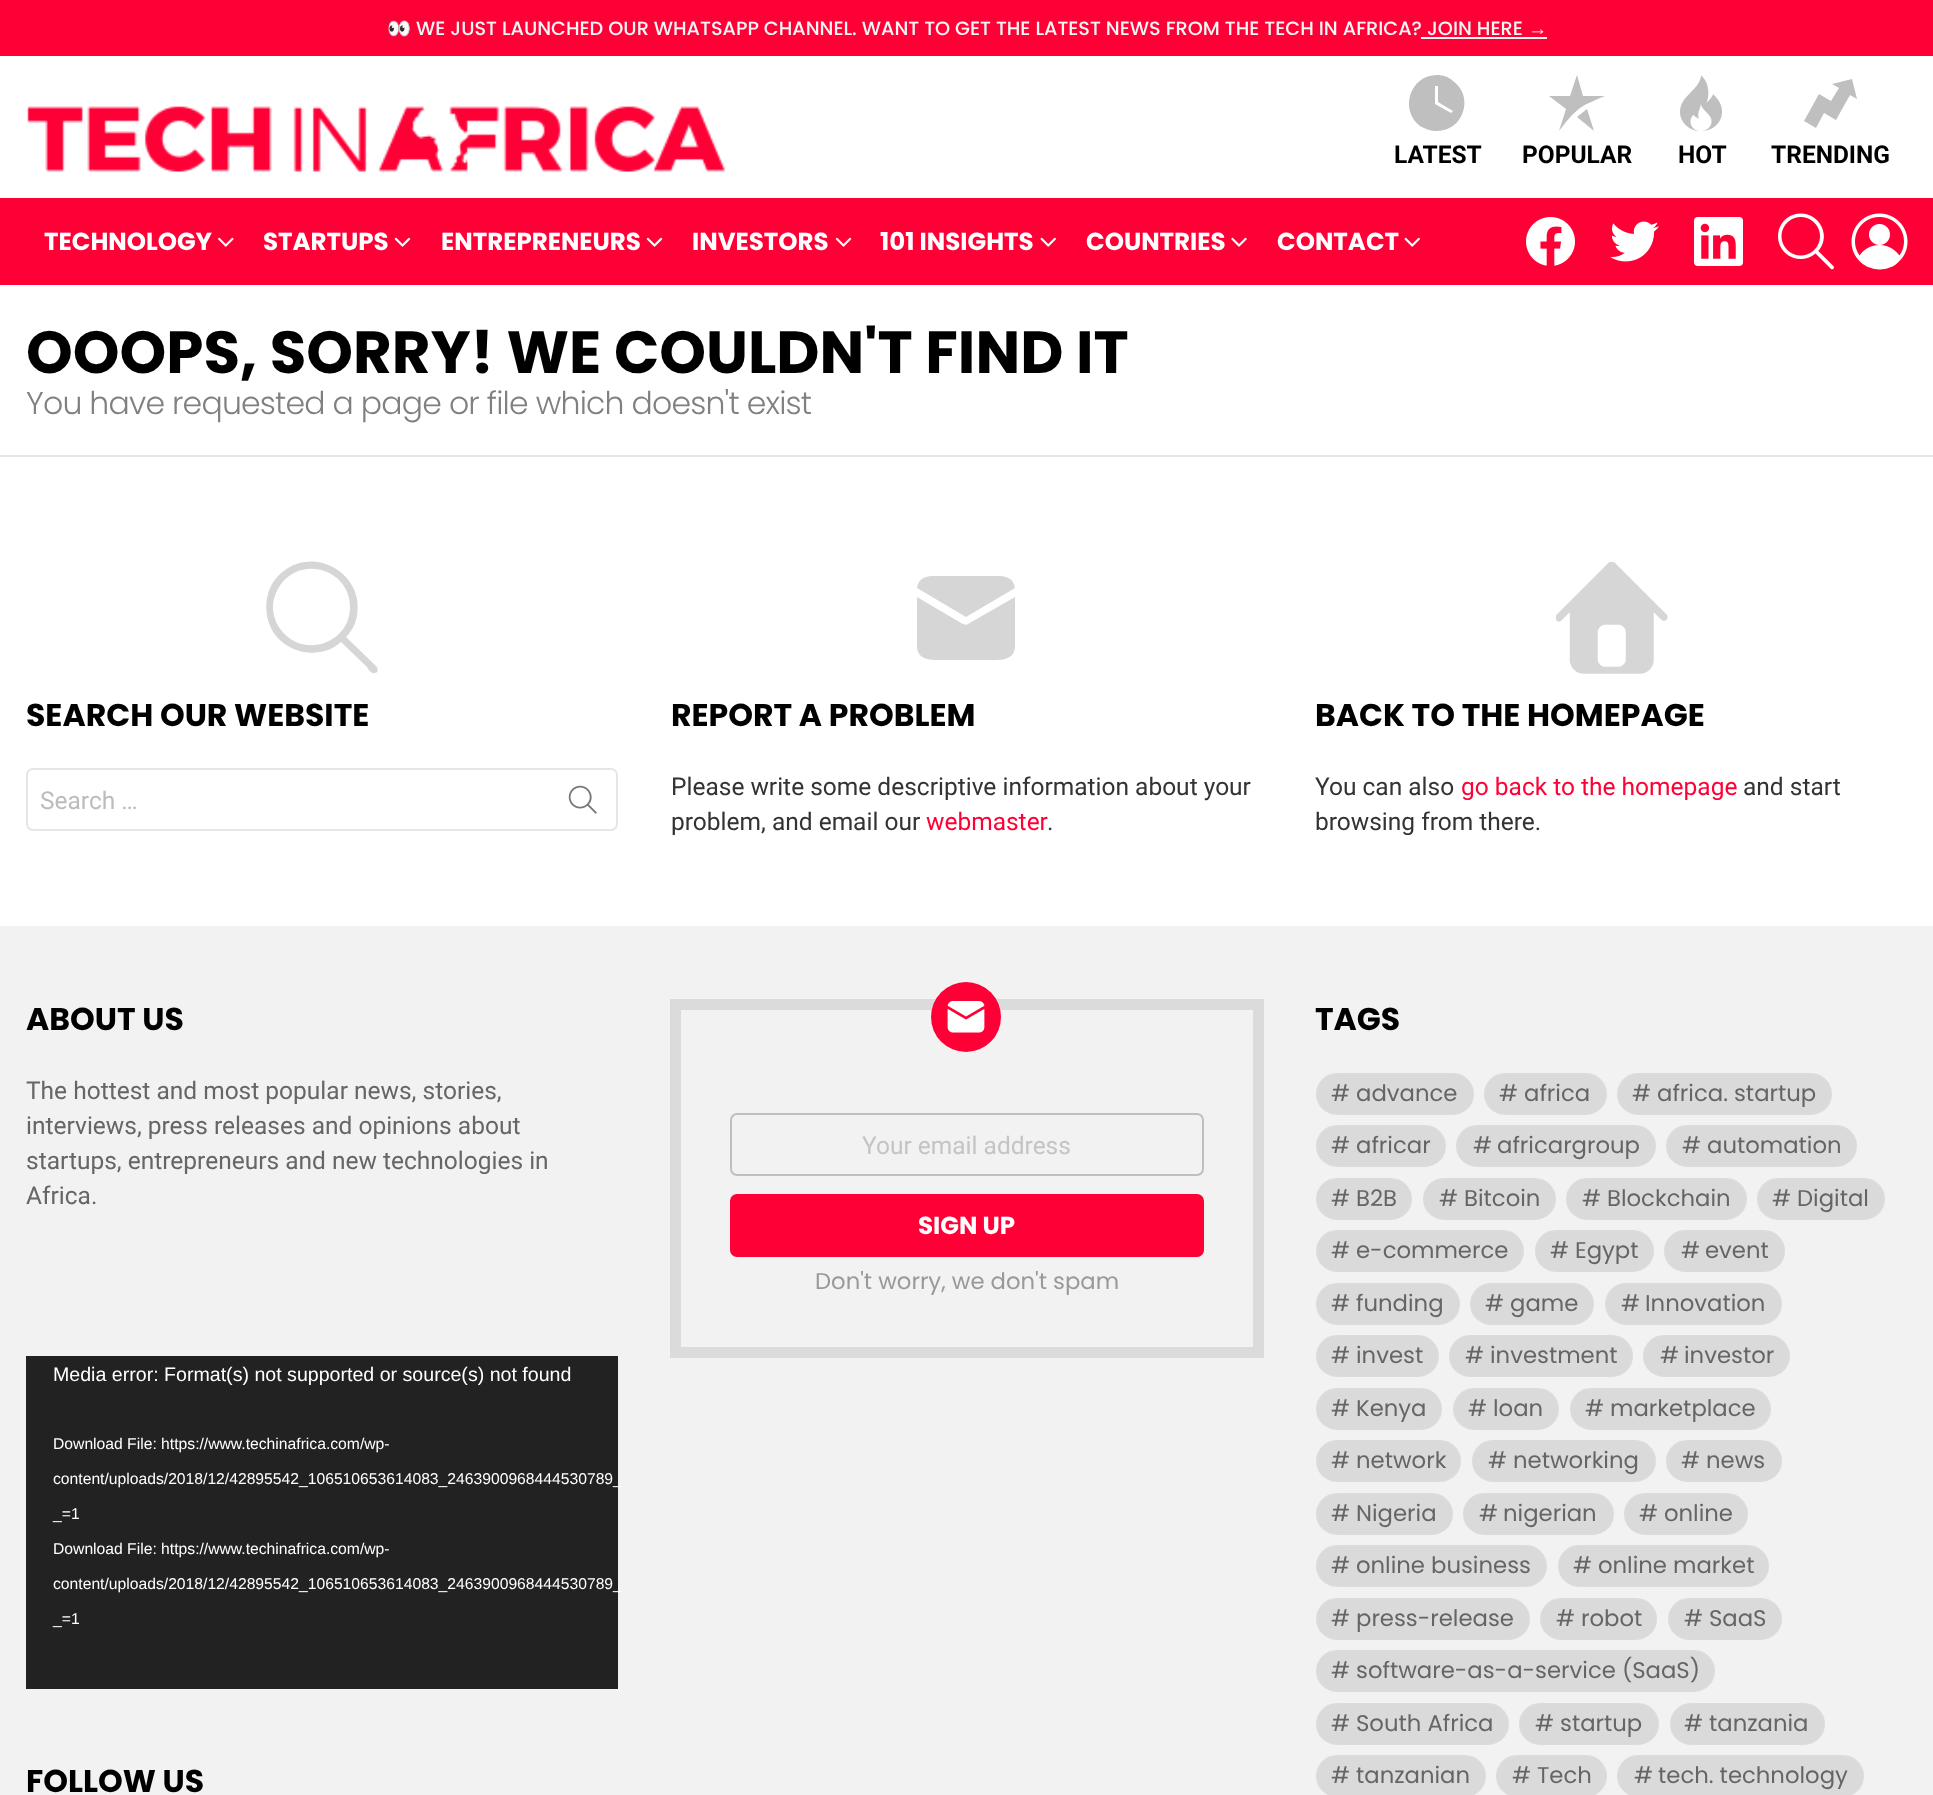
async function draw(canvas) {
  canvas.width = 1933;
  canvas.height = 1795;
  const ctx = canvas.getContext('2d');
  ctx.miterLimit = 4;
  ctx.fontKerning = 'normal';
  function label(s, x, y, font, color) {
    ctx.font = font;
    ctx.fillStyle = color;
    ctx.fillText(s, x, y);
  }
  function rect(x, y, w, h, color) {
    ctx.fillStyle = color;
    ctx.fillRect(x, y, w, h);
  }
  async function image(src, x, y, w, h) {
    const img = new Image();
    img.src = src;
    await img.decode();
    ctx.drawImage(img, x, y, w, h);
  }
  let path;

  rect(0, 0, 1933, 1795, '#fff');
  rect(0, 0, 1933, 56, '#ff0036');
  label('👀', 387, 35, '19.25px Noto Color Emoji', '#f5f5f5');
  label('WE JUST LAUNCHED OUR WHATSAPP CHANNEL. WANT TO GET THE LATEST NEWS FROM THE TECH IN AFRICA? JOIN HERE', 416, 35, '500 19.25px Poppins', '#f5f5f5');
  label('→', 1528, 35, '19.25px Liberation Sans', '#f5f5f5');
  rect(1421, 37, 126, 2, '#f5f5f5');
  await image('assets/img1.png', 27, 106, 698, 66);
  ctx.fillStyle = '#bfbfbf';
  path = new Path2D('M1437 75C1410 75 1399 110 1420 126C1425 129 1431 131 1437 131C1463 131 1475 97 1453 81C1449 77 1443 75 1437 75ZM1451 113L1435 104V86H1438V102L1453 111Z');
  ctx.fill(path);
  label('LATEST', 1394, 163, 'bold 24.5px Roboto', '#000');
  ctx.fillStyle = '#bfbfbf';
  path = new Path2D('M1580 108C1587 103 1596 100 1605 96H1583L1577 75L1570 96H1549L1566 109L1559 131C1565 123 1572 114 1580 108ZM1577 117L1594 131L1587 109Z');
  ctx.fill(path);
  label('POPULAR', 1522, 163, 'bold 24.5px Roboto', '#000');
  await image('assets/img2.png', 1680, 75, 42, 56);
  label('HOT', 1678, 163, 'bold 24.5px Roboto', '#000');
  ctx.fillStyle = '#bfbfbf';
  path = new Path2D('M1831 101L1839 88L1832 84L1852 79L1857 99L1850 95L1836 120L1824 113L1816 128L1804 121L1819 94Z');
  ctx.fill(path);
  label('TRENDING', 1771, 163, 'bold 24.5px Roboto', '#000');
  rect(0, 198, 1933, 87, '#ff0036');
  label('TECHNOLOGY', 44, 250, 'bold 24.5px Poppins', '#fff');
  await image('assets/img3.png', 218, 237, 16, 10);
  label('STARTUPS', 263, 250, 'bold 24.5px Poppins', '#fff');
  await image('assets/img4.png', 394, 237, 17, 10);
  label('ENTREPRENEURS', 441, 250, 'bold 24.5px Poppins', '#fff');
  await image('assets/img4.png', 646, 237, 17, 10);
  label('INVESTORS', 692, 250, 'bold 24.5px Poppins', '#fff');
  await image('assets/img4.png', 835, 237, 17, 10);
  label('101 INSIGHTS', 880, 250, 'bold 24.5px Poppins', '#fff');
  await image('assets/img5.png', 1040, 237, 16, 10);
  label('COUNTRIES', 1086, 250, 'bold 24.5px Poppins', '#fff');
  await image('assets/img6.png', 1231, 237, 16, 10);
  label('CONTACT', 1277, 250, 'bold 24.5px Poppins', '#fff');
  await image('assets/img5.png', 1404, 237, 16, 10);
  await image('assets/img7.png', 1526, 217, 49, 49);
  await image('assets/img8.png', 1610, 221, 49, 41);
  await image('assets/img9.png', 1694, 217, 49, 49);
  await image('assets/img10.png', 1778, 213, 56, 57);
  await image('assets/img11.png', 1851, 213, 57, 57);
  label('OOOPS, SORRY! WE COULDN\'T FIND IT', 26, 373, 'bold 59.5px Poppins', '#000');
  ctx.letterSpacing = '-0.8px';
  label('You have requested a page or file which doesn\'t exist', 26, 414, '300 31.5px Poppins', '#808080');
  rect(0, 455, 1933, 2, '#e6e6e6');
  ctx.fillStyle = '#d6d6d6';
  path = new Path2D('M377 667L346 637C352 631 356 623 357 615C364 577 321 548 288 568C278 574 271 583 268 594C264 608 267 625 276 636C292 655 322 659 341 642L367 667C368 669 371 674 375 673C378 673 378 670 377 667ZM273 607C273 599 276 591 281 584C303 555 350 570 350 607C350 644 303 659 281 630C276 624 273 615 273 607Z');
  ctx.fill(path);
  ctx.letterSpacing = '0px';
  label('SEARCH OUR WEBSITE', 26, 726, 'bold 31.5px Poppins', '#000');
  ctx.beginPath();
  ctx.roundRect(27, 769, 590, 61, 6);
  ctx.strokeStyle = '#e6e6e6';
  ctx.lineWidth = 2;
  ctx.stroke();
  label('Search …', 40, 809, '24.5px Roboto', '#bcbcbc');
  await image('assets/img12.png', 568, 785, 29, 29);
  ctx.fillStyle = '#d6d6d6';
  path = new Path2D('M966 617L1015 588C1013 574 1000 576 989 576H943C932 576 919 574 917 588ZM968 624C965 627 957 620 956 620L917 597V648C919 661 932 660 943 660H989C1000 660 1013 661 1015 648V597Z');
  ctx.fill(path);
  label('REPORT A PROBLEM', 671, 726, 'bold 31.5px Poppins', '#000');
  label('Please write some descriptive information about your', 671, 795, '24.5px Roboto', '#333');
  label('problem, and email our', 671, 830, '24.5px Roboto', '#333');
  label('webmaster', 926, 830, '24.5px Roboto', '#ff0036');
  label('.', 1047, 830, '24.5px Roboto', '#333');
  await image('assets/img13.png', 1556, 562, 112, 112);
  label('BACK TO THE HOMEPAGE', 1315, 726, 'bold 31.5px Poppins', '#000');
  label('You can also', 1315, 795, '24.5px Roboto', '#333');
  label('go back to the homepage', 1461, 795, '24.5px Roboto', '#ff0036');
  label('and start', 1743, 795, '24.5px Roboto', '#333');
  label('browsing from there.', 1315, 830, '24.5px Roboto', '#333');
  rect(0, 926, 1933, 869, '#f2f2f2');
  label('ABOUT US', 26, 1030, 'bold 31.5px Poppins', '#000');
  label('The hottest and most popular news, stories,', 26, 1099, '24.5px Roboto', '#666');
  label('interviews, press releases and opinions about', 26, 1134, '24.5px Roboto', '#666');
  label('startups, entrepreneurs and new technologies in', 26, 1169, '24.5px Roboto', '#666');
  label('Africa.', 26, 1204, '24.5px Roboto', '#666');
  rect(26, 1356, 592, 333, '#222');
  label('Media error: Format(s) not supported or source(s) not found', 53, 1381, '19.6px Liberation Sans', '#fff');
  label('Download File: https://www.techinafrica.com/wp-', 53, 1449, '15.7px Liberation Sans', '#fff');
  label('content/uploads/2018/12/42895542_106510653614083_2463900968444530789_', 53, 1484, '15.7px Liberation Sans', '#fff');
  label('_=1', 53, 1519, '15.7px Liberation Sans', '#fff');
  label('Download File: https://www.techinafrica.com/wp-', 53, 1554, '15.7px Liberation Sans', '#fff');
  label('content/uploads/2018/12/42895542_106510653614083_2463900968444530789_', 53, 1589, '15.7px Liberation Sans', '#fff');
  label('_=1', 53, 1624, '15.7px Liberation Sans', '#fff');
  label('FOLLOW US', 26, 1792, 'bold 31.5px Poppins', '#000');
  ctx.strokeStyle = '#dbdbdb';
  ctx.lineWidth = 11;
  ctx.strokeRect(675.5, 1004.5, 583, 348);
  ctx.fillStyle = '#ff0036';
  ctx.beginPath();
  ctx.arc(966, 1017, 35, 0, 2 * Math.PI);
  ctx.fill();
  await image('assets/img14.png', 947, 1001, 38, 32);
  ctx.beginPath();
  ctx.roundRect(731, 1114, 472, 61, 6);
  ctx.strokeStyle = '#bfbfbf';
  ctx.lineWidth = 2;
  ctx.stroke();
  label('Your email address', 862, 1154, '24.5px Roboto', '#c4c4c4');
  ctx.fillStyle = '#ff0036';
  ctx.beginPath();
  ctx.roundRect(732, 1196, 470, 59, 5);
  ctx.fill();
  ctx.strokeStyle = '#ff0036';
  ctx.lineWidth = 4;
  ctx.stroke();
  label('SIGN UP', 918, 1234, 'bold 24.5px Poppins', '#fff');
  label('Don\'t worry, we don\'t spam', 815, 1289, '22.75px Poppins', '#999');
  label('TAGS', 1315, 1030, 'bold 31.5px Poppins', '#000');
  label('#', 1331, 1101, '22.75px Poppins', '#666');
  label('advance', 1356, 1101, '22.75px Poppins', '#666');
  ctx.fillStyle = '#6666662b';
  ctx.beginPath();
  ctx.roundRect(1317, 1074, 156, 40, 20);
  ctx.fill();
  ctx.strokeStyle = '#dbdbdb';
  ctx.lineWidth = 2;
  ctx.stroke();
  label('#', 1499, 1101, '22.75px Poppins', '#666');
  label('africa', 1524, 1101, '22.75px Poppins', '#666');
  ctx.fillStyle = '#6666662b';
  ctx.beginPath();
  ctx.roundRect(1485, 1074, 121, 40, 20);
  ctx.fill();
  ctx.stroke();
  label('#', 1632, 1101, '22.75px Poppins', '#666');
  label('africa. startup', 1657, 1101, '22.75px Poppins', '#666');
  ctx.fillStyle = '#6666662b';
  ctx.beginPath();
  ctx.roundRect(1618, 1074, 213, 40, 20);
  ctx.fill();
  ctx.stroke();
  label('#', 1331, 1153, '22.75px Poppins', '#666');
  label('africar', 1356, 1153, '22.75px Poppins', '#666');
  ctx.fillStyle = '#6666662b';
  ctx.beginPath();
  ctx.roundRect(1317, 1126, 128, 40, 20);
  ctx.fill();
  ctx.stroke();
  label('#', 1473, 1153, '22.75px Poppins', '#666');
  label('africargroup', 1497, 1153, '22.75px Poppins', '#666');
  ctx.fillStyle = '#6666662b';
  ctx.beginPath();
  ctx.roundRect(1457, 1126, 198, 40, 20);
  ctx.fill();
  ctx.stroke();
  label('#', 1682, 1153, '22.75px Poppins', '#666');
  label('automation', 1707, 1153, '22.75px Poppins', '#666');
  ctx.fillStyle = '#6666662b';
  ctx.beginPath();
  ctx.roundRect(1667, 1126, 189, 40, 20);
  ctx.fill();
  ctx.stroke();
  label('#', 1331, 1206, '22.75px Poppins', '#666');
  label('B2B', 1356, 1206, '22.75px Poppins', '#666');
  ctx.fillStyle = '#6666662b';
  ctx.beginPath();
  ctx.roundRect(1317, 1179, 94, 40, 20);
  ctx.fill();
  ctx.stroke();
  label('#', 1439, 1206, '22.75px Poppins', '#666');
  label('Bitcoin', 1464, 1206, '22.75px Poppins', '#666');
  ctx.fillStyle = '#6666662b';
  ctx.beginPath();
  ctx.roundRect(1424, 1179, 131, 40, 20);
  ctx.fill();
  ctx.stroke();
  label('#', 1582, 1206, '22.75px Poppins', '#666');
  label('Blockchain', 1607, 1206, '22.75px Poppins', '#666');
  ctx.fillStyle = '#6666662b';
  ctx.beginPath();
  ctx.roundRect(1567, 1179, 179, 40, 20);
  ctx.fill();
  ctx.stroke();
  label('#', 1772, 1206, '22.75px Poppins', '#666');
  label('Digital', 1797, 1206, '22.75px Poppins', '#666');
  ctx.fillStyle = '#6666662b';
  ctx.beginPath();
  ctx.roundRect(1758, 1179, 126, 40, 20);
  ctx.fill();
  ctx.stroke();
  label('#', 1331, 1258, '22.75px Poppins', '#666');
  label('e-commerce', 1356, 1258, '22.75px Poppins', '#666');
  ctx.fillStyle = '#6666662b';
  ctx.beginPath();
  ctx.roundRect(1317, 1231, 206, 40, 20);
  ctx.fill();
  ctx.stroke();
  label('#', 1550, 1258, '22.75px Poppins', '#666');
  label('Egypt', 1575, 1258, '22.75px Poppins', '#666');
  ctx.fillStyle = '#6666662b';
  ctx.beginPath();
  ctx.roundRect(1536, 1231, 117, 40, 20);
  ctx.fill();
  ctx.stroke();
  label('#', 1681, 1258, '22.75px Poppins', '#666');
  label('event', 1705, 1258, '22.75px Poppins', '#666');
  ctx.fillStyle = '#6666662b';
  ctx.beginPath();
  ctx.roundRect(1665, 1231, 119, 40, 20);
  ctx.fill();
  ctx.stroke();
  label('#', 1331, 1311, '22.75px Poppins', '#666');
  label('funding', 1356, 1311, '22.75px Poppins', '#666');
  ctx.fillStyle = '#6666662b';
  ctx.beginPath();
  ctx.roundRect(1317, 1284, 142, 40, 20);
  ctx.fill();
  ctx.stroke();
  label('#', 1485, 1311, '22.75px Poppins', '#666');
  label('game', 1510, 1311, '22.75px Poppins', '#666');
  ctx.fillStyle = '#6666662b';
  ctx.beginPath();
  ctx.roundRect(1471, 1284, 122, 40, 20);
  ctx.fill();
  ctx.stroke();
  label('#', 1621, 1311, '22.75px Poppins', '#666');
  label('Innovation', 1645, 1311, '22.75px Poppins', '#666');
  ctx.fillStyle = '#6666662b';
  ctx.beginPath();
  ctx.roundRect(1606, 1284, 175, 40, 20);
  ctx.fill();
  ctx.stroke();
  label('#', 1331, 1363, '22.75px Poppins', '#666');
  label('invest', 1356, 1363, '22.75px Poppins', '#666');
  ctx.fillStyle = '#6666662b';
  ctx.beginPath();
  ctx.roundRect(1317, 1336, 121, 40, 20);
  ctx.fill();
  ctx.stroke();
  label('#', 1465, 1363, '22.75px Poppins', '#666');
  label('investment', 1490, 1363, '22.75px Poppins', '#666');
  ctx.fillStyle = '#6666662b';
  ctx.beginPath();
  ctx.roundRect(1450, 1336, 182, 40, 20);
  ctx.fill();
  ctx.stroke();
  label('#', 1660, 1363, '22.75px Poppins', '#666');
  label('investor', 1684, 1363, '22.75px Poppins', '#666');
  ctx.fillStyle = '#6666662b';
  ctx.beginPath();
  ctx.roundRect(1644, 1336, 145, 40, 20);
  ctx.fill();
  ctx.stroke();
  label('#', 1331, 1416, '22.75px Poppins', '#666');
  label('Kenya', 1356, 1416, '22.75px Poppins', '#666');
  ctx.fillStyle = '#6666662b';
  ctx.beginPath();
  ctx.roundRect(1317, 1389, 124, 40, 20);
  ctx.fill();
  ctx.stroke();
  label('#', 1468, 1416, '22.75px Poppins', '#666');
  label('loan', 1493, 1416, '22.75px Poppins', '#666');
  ctx.fillStyle = '#6666662b';
  ctx.beginPath();
  ctx.roundRect(1454, 1389, 104, 40, 20);
  ctx.fill();
  ctx.stroke();
  label('#', 1585, 1416, '22.75px Poppins', '#666');
  label('marketplace', 1610, 1416, '22.75px Poppins', '#666');
  ctx.fillStyle = '#6666662b';
  ctx.beginPath();
  ctx.roundRect(1571, 1389, 199, 40, 20);
  ctx.fill();
  ctx.stroke();
  label('#', 1331, 1468, '22.75px Poppins', '#666');
  label('network', 1356, 1468, '22.75px Poppins', '#666');
  ctx.fillStyle = '#6666662b';
  ctx.beginPath();
  ctx.roundRect(1317, 1441, 143, 40, 20);
  ctx.fill();
  ctx.stroke();
  label('#', 1488, 1468, '22.75px Poppins', '#666');
  label('networking', 1513, 1468, '22.75px Poppins', '#666');
  ctx.fillStyle = '#6666662b';
  ctx.beginPath();
  ctx.roundRect(1473, 1441, 182, 40, 20);
  ctx.fill();
  ctx.stroke();
  label('#', 1681, 1468, '22.75px Poppins', '#666');
  label('news', 1706, 1468, '22.75px Poppins', '#666');
  ctx.fillStyle = '#6666662b';
  ctx.beginPath();
  ctx.roundRect(1667, 1441, 114, 40, 20);
  ctx.fill();
  ctx.stroke();
  label('#', 1331, 1521, '22.75px Poppins', '#666');
  label('Nigeria', 1356, 1521, '22.75px Poppins', '#666');
  ctx.fillStyle = '#6666662b';
  ctx.beginPath();
  ctx.roundRect(1317, 1494, 135, 40, 20);
  ctx.fill();
  ctx.stroke();
  label('#', 1479, 1521, '22.75px Poppins', '#666');
  label('nigerian', 1503, 1521, '22.75px Poppins', '#666');
  ctx.fillStyle = '#6666662b';
  ctx.beginPath();
  ctx.roundRect(1464, 1494, 149, 40, 20);
  ctx.fill();
  ctx.stroke();
  label('#', 1639, 1521, '22.75px Poppins', '#666');
  label('online', 1664, 1521, '22.75px Poppins', '#666');
  ctx.fillStyle = '#6666662b';
  ctx.beginPath();
  ctx.roundRect(1625, 1494, 122, 40, 20);
  ctx.fill();
  ctx.stroke();
  label('#', 1331, 1573, '22.75px Poppins', '#666');
  label('online business', 1356, 1573, '22.75px Poppins', '#666');
  ctx.fillStyle = '#6666662b';
  ctx.beginPath();
  ctx.roundRect(1317, 1546, 229, 40, 20);
  ctx.fill();
  ctx.stroke();
  label('#', 1573, 1573, '22.75px Poppins', '#666');
  label('online market', 1598, 1573, '22.75px Poppins', '#666');
  ctx.fillStyle = '#6666662b';
  ctx.beginPath();
  ctx.roundRect(1559, 1546, 209, 40, 20);
  ctx.fill();
  ctx.stroke();
  label('#', 1331, 1626, '22.75px Poppins', '#666');
  label('press-release', 1356, 1626, '22.75px Poppins', '#666');
  ctx.fillStyle = '#6666662b';
  ctx.beginPath();
  ctx.roundRect(1317, 1599, 212, 40, 20);
  ctx.fill();
  ctx.stroke();
  label('#', 1556, 1626, '22.75px Poppins', '#666');
  label('robot', 1581, 1626, '22.75px Poppins', '#666');
  ctx.fillStyle = '#6666662b';
  ctx.beginPath();
  ctx.roundRect(1541, 1599, 115, 40, 20);
  ctx.fill();
  ctx.stroke();
  label('#', 1684, 1626, '22.75px Poppins', '#666');
  label('SaaS', 1709, 1626, '22.75px Poppins', '#666');
  ctx.fillStyle = '#6666662b';
  ctx.beginPath();
  ctx.roundRect(1669, 1599, 112, 40, 20);
  ctx.fill();
  ctx.stroke();
  label('#', 1331, 1678, '22.75px Poppins', '#666');
  label('software-as-a-service (SaaS)', 1356, 1678, '22.75px Poppins', '#666');
  ctx.fillStyle = '#6666662b';
  ctx.beginPath();
  ctx.roundRect(1317, 1651, 397, 40, 20);
  ctx.fill();
  ctx.stroke();
  label('#', 1331, 1731, '22.75px Poppins', '#666');
  label('South Africa', 1356, 1731, '22.75px Poppins', '#666');
  ctx.fillStyle = '#6666662b';
  ctx.beginPath();
  ctx.roundRect(1317, 1704, 191, 40, 20);
  ctx.fill();
  ctx.stroke();
  label('#', 1535, 1731, '22.75px Poppins', '#666');
  label('startup', 1560, 1731, '22.75px Poppins', '#666');
  ctx.fillStyle = '#6666662b';
  ctx.beginPath();
  ctx.roundRect(1520, 1704, 138, 40, 20);
  ctx.fill();
  ctx.stroke();
  label('#', 1684, 1731, '22.75px Poppins', '#666');
  label('tanzania', 1709, 1731, '22.75px Poppins', '#666');
  ctx.fillStyle = '#6666662b';
  ctx.beginPath();
  ctx.roundRect(1671, 1704, 153, 40, 20);
  ctx.fill();
  ctx.stroke();
  label('#', 1331, 1783, '22.75px Poppins', '#666');
  label('tanzanian', 1356, 1783, '22.75px Poppins', '#666');
  ctx.fillStyle = '#6666662b';
  ctx.beginPath();
  ctx.roundRect(1317, 1756, 168, 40, 20);
  ctx.fill();
  ctx.stroke();
  label('#', 1512, 1783, '22.75px Poppins', '#666');
  label('Tech', 1537, 1783, '22.75px Poppins', '#666');
  ctx.fillStyle = '#6666662b';
  ctx.beginPath();
  ctx.roundRect(1497, 1756, 109, 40, 20);
  ctx.fill();
  ctx.stroke();
  label('#', 1634, 1783, '22.75px Poppins', '#666');
  label('tech. technology', 1658, 1783, '22.75px Poppins', '#666');
  ctx.fillStyle = '#6666662b';
  ctx.beginPath();
  ctx.roundRect(1618, 1756, 245, 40, 20);
  ctx.fill();
  ctx.stroke();
}

draw(document.querySelector('canvas'));
